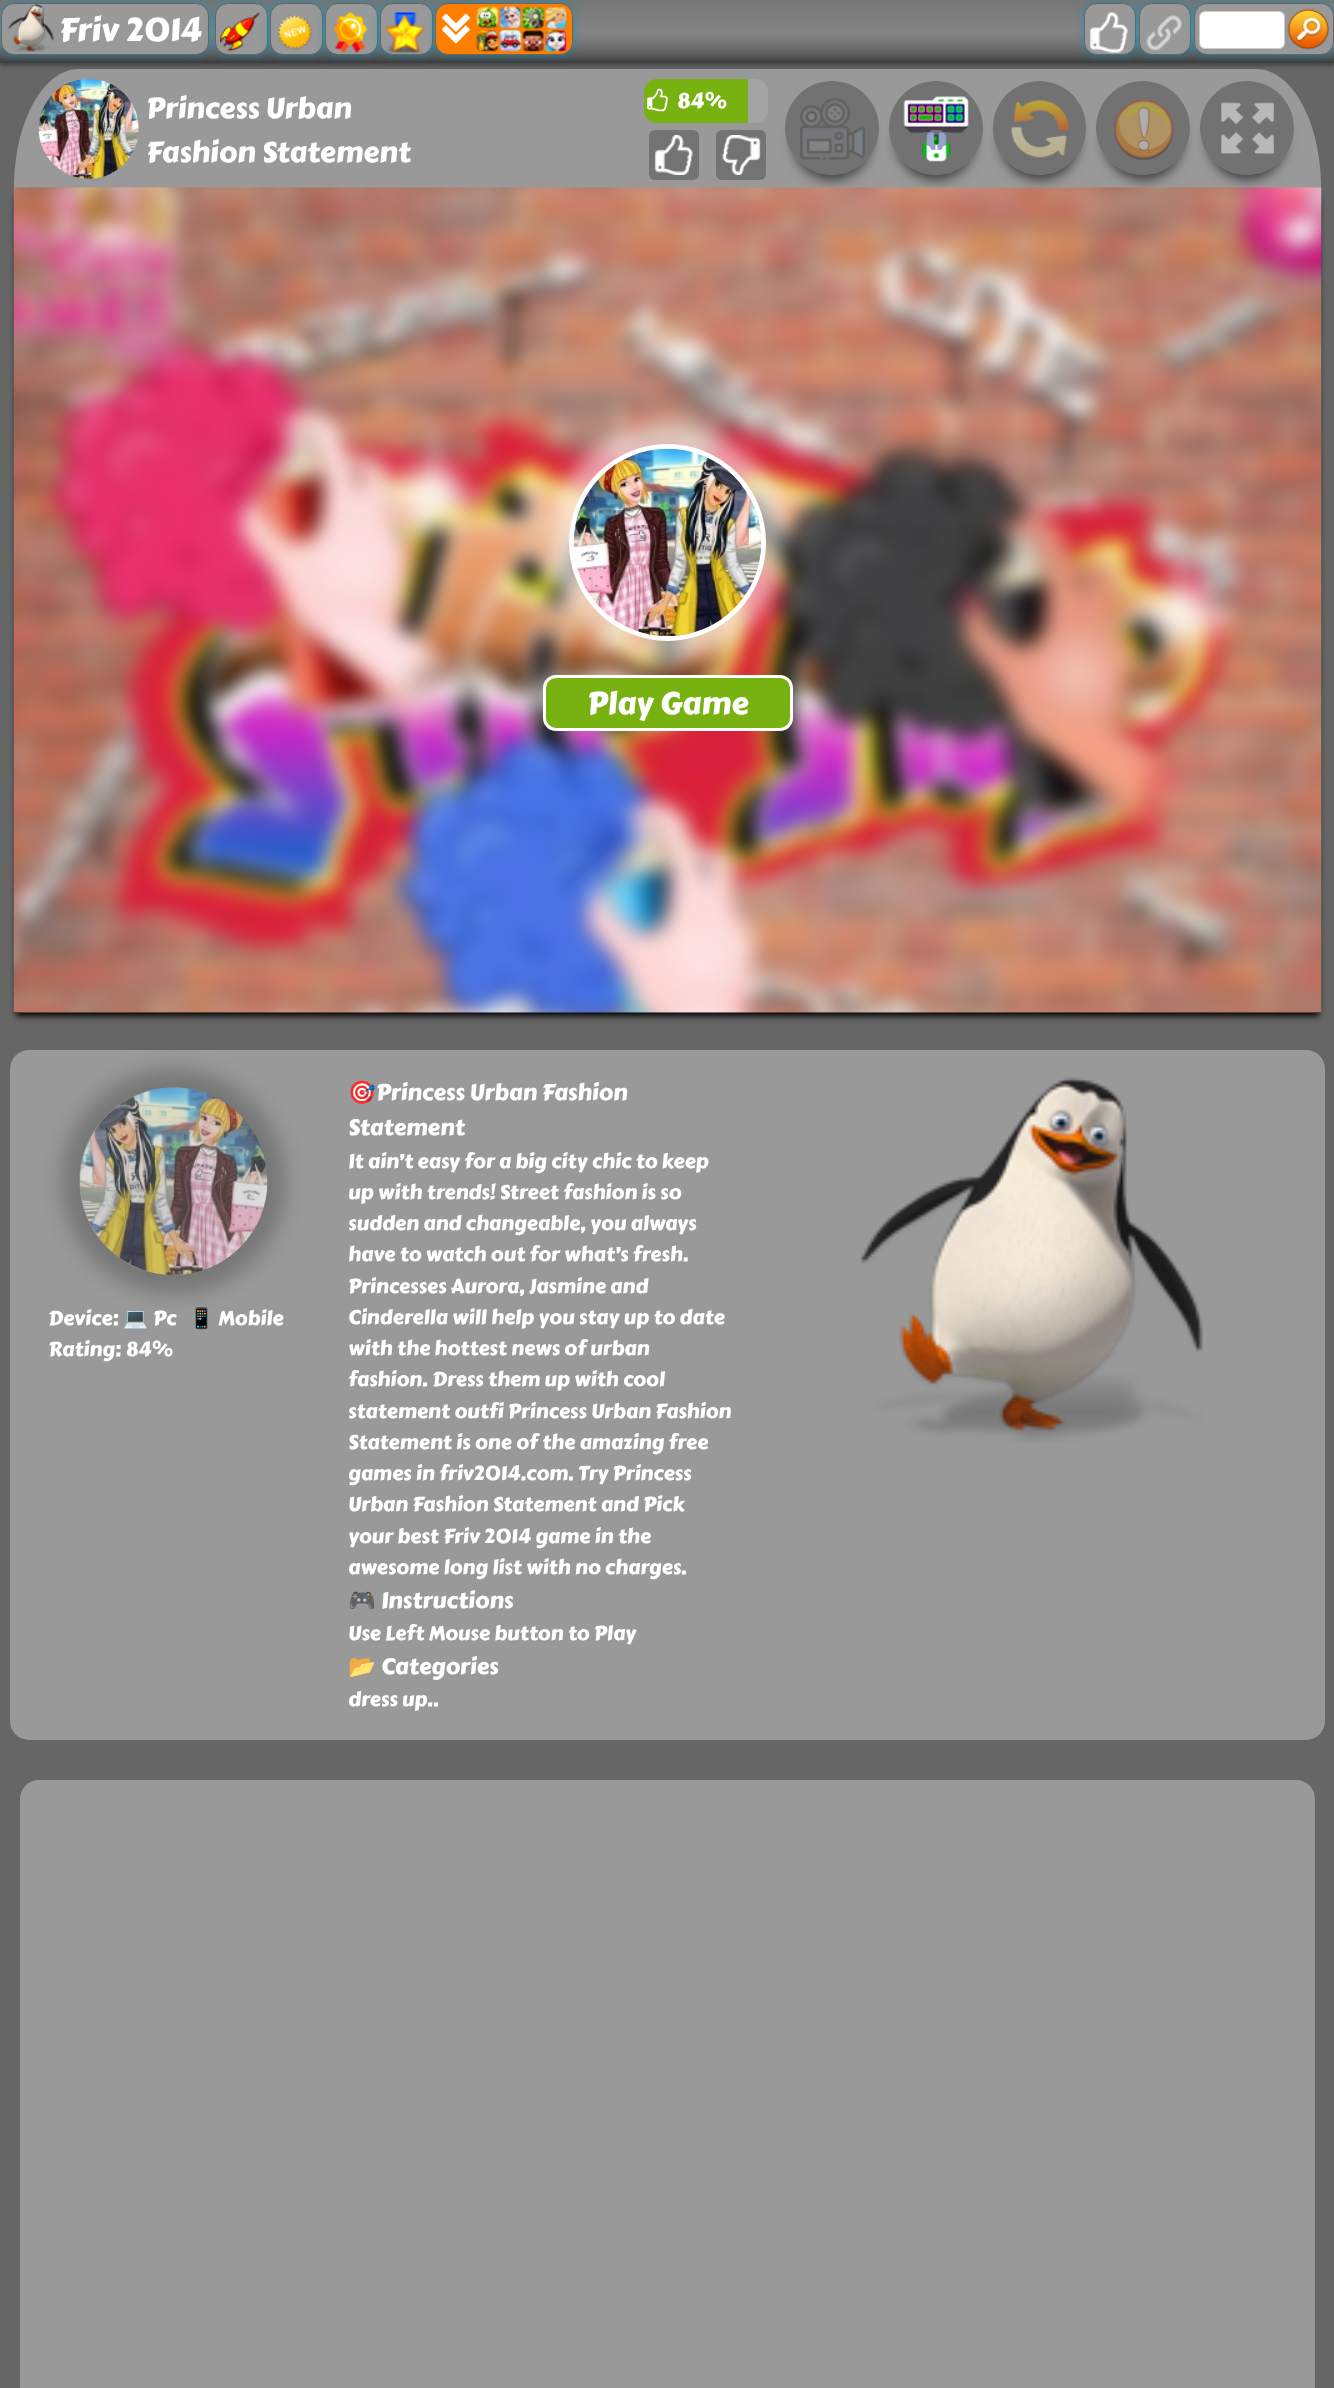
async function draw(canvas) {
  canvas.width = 1334;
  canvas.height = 2388;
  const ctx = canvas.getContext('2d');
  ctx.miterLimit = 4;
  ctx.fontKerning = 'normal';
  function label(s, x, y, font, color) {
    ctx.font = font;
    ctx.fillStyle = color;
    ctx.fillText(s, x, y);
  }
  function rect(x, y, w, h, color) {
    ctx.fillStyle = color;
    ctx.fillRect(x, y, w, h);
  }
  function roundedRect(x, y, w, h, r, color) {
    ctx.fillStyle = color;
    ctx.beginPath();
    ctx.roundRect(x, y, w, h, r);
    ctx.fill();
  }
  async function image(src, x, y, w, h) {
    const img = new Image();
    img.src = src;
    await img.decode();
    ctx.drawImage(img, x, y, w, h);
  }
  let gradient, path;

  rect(0, 0, 1334, 2388, '#666');
  ctx.save();
  path = new Path2D('M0 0H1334V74H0ZM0 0H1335V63H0Z');
  ctx.clip(path, 'evenodd');
  ctx.fillStyle = '#00000066';
  ctx.filter = 'blur(2.5px)';
  ctx.beginPath();
  ctx.rect(0, 3, 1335, 62);
  ctx.fill();
  ctx.filter = 'none';
  ctx.restore();
  gradient = ctx.createLinearGradient(668, 0, 668, 63);
  gradient.addColorStop(0, '#ffffff1a');
  gradient.addColorStop(0.5, '#ffffff33');
  gradient.addColorStop(1, '#00000066');
  ctx.fillStyle = gradient;
  ctx.fillRect(0, 0, 1334, 63);
  ctx.fillStyle = '#0092bf99';
  ctx.filter = 'blur(5px)';
  ctx.beginPath();
  ctx.roundRect(1, 3, 208, 52, 13);
  ctx.fill();
  ctx.filter = 'none';
  ctx.fillStyle = '#999';
  ctx.beginPath();
  ctx.roundRect(1.5, 3.5, 207, 51, 12.5);
  ctx.fill();
  ctx.strokeStyle = '#666';
  ctx.stroke();
  await image('assets/img1.png', 7, 3, 47, 49);
  label('Friv 2014', 59, 41, '32.5px Carter One', '#fff');
  ctx.fillStyle = '#0092bf99';
  ctx.filter = 'blur(5px)';
  ctx.beginPath();
  ctx.roundRect(215, 3, 53, 52, 13);
  ctx.fill();
  ctx.filter = 'none';
  ctx.fillStyle = '#999';
  ctx.beginPath();
  ctx.roundRect(215.5, 3.5, 52, 51, 12.5);
  ctx.fill();
  ctx.stroke();
  await image('assets/img2.png', 220, 12, 40, 40);
  ctx.fillStyle = '#0092bf99';
  ctx.filter = 'blur(5px)';
  ctx.beginPath();
  ctx.roundRect(270, 3, 53, 52, 13);
  ctx.fill();
  ctx.filter = 'none';
  ctx.fillStyle = '#999';
  ctx.beginPath();
  ctx.roundRect(270.5, 3.5, 52, 51, 12.5);
  ctx.fill();
  ctx.stroke();
  await image('assets/img3.png', 277, 15, 36, 35);
  ctx.fillStyle = '#0092bf99';
  ctx.filter = 'blur(5px)';
  ctx.beginPath();
  ctx.roundRect(325, 3, 53, 52, 13);
  ctx.fill();
  ctx.filter = 'none';
  ctx.fillStyle = '#999';
  ctx.beginPath();
  ctx.roundRect(325.5, 3.5, 52, 51, 12.5);
  ctx.fill();
  ctx.stroke();
  await image('assets/img4.png', 333, 12, 35, 41);
  ctx.fillStyle = '#0092bf99';
  ctx.filter = 'blur(5px)';
  ctx.beginPath();
  ctx.roundRect(380, 3, 53, 52, 13);
  ctx.fill();
  ctx.filter = 'none';
  ctx.fillStyle = '#999';
  ctx.beginPath();
  ctx.roundRect(380.5, 3.5, 52, 51, 12.5);
  ctx.fill();
  ctx.stroke();
  await image('assets/img5.png', 385, 12, 40, 41);
  ctx.fillStyle = '#0092bf99';
  ctx.filter = 'blur(5px)';
  ctx.beginPath();
  ctx.roundRect(435, 3, 138, 52, 13);
  ctx.fill();
  ctx.filter = 'none';
  ctx.fillStyle = '#fe7f00';
  ctx.beginPath();
  ctx.roundRect(435.5, 3.5, 137, 51, 12.5);
  ctx.fill();
  ctx.stroke();
  await image('assets/img6.png', 441, 13, 30, 31);
  await image('assets/img7.png', 476, 6, 91, 46);
  ctx.fillStyle = '#0092bf99';
  ctx.filter = 'blur(5px)';
  ctx.beginPath();
  ctx.roundRect(1084, 3, 52, 52, 13);
  ctx.fill();
  ctx.filter = 'none';
  ctx.fillStyle = '#999';
  ctx.beginPath();
  ctx.roundRect(1084.5, 3.5, 51, 51, 12.5);
  ctx.fill();
  ctx.stroke();
  await image('assets/img8.png', 1089, 12, 39, 41);
  ctx.fillStyle = '#0092bf99';
  ctx.filter = 'blur(5px)';
  ctx.beginPath();
  ctx.roundRect(1139, 3, 52, 52, 13);
  ctx.fill();
  ctx.filter = 'none';
  ctx.fillStyle = '#999';
  ctx.beginPath();
  ctx.roundRect(1139.5, 3.5, 51, 51, 12.5);
  ctx.fill();
  ctx.stroke();
  await image('assets/img9.png', 1146, 15, 36, 36);
  ctx.fillStyle = '#0092bf99';
  ctx.filter = 'blur(5px)';
  ctx.beginPath();
  ctx.roundRect(1194, 3, 140, 52, 13);
  ctx.fill();
  ctx.filter = 'none';
  ctx.fillStyle = '#999';
  ctx.beginPath();
  ctx.roundRect(1194.5, 3.5, 139, 51, 12.5);
  ctx.fill();
  ctx.stroke();
  ctx.fillStyle = '#fff';
  ctx.beginPath();
  ctx.roundRect(1199.5, 11.5, 85, 37, 5.5);
  ctx.fill();
  ctx.strokeStyle = '#ccc';
  ctx.stroke();
  await image('assets/img10.png', 1287, 8, 42, 42);
  ctx.fillStyle = '#999';
  path = new Path2D('M79 69H1256C1292 69 1321 122 1321 188H14C14 122 43 69 79 69Z');
  ctx.fill(path);
  await image('assets/img11.png', 38, 78, 101, 101);
  label('Princess Urban', 146, 118, '28.75px Carter One', '#fff');
  label('Fashion Statement', 146, 162, '28.75px Carter One', '#fff');
  ctx.fillStyle = '#77b211';
  ctx.beginPath();
  ctx.roundRect(644, 79, 104, 44, [13, 0, 0, 13]);
  ctx.fill();
  await image('assets/img12.png', 647, 88, 21, 24);
  label('84%', 677, 108, '21px Carter One', '#fff');
  ctx.fillStyle = '#a4a4a4';
  ctx.beginPath();
  ctx.roundRect(748, 79, 20, 44, [0, 13, 13, 0]);
  ctx.fill();
  roundedRect(649, 130, 50, 50, 6, '#737373');
  await image('assets/img13.png', 654, 135, 39, 40);
  roundedRect(716, 130, 50, 50, 6, '#737373');
  await image('assets/img14.png', 722, 135, 39, 40);
  ctx.save();
  path = new Path2D('M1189 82H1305V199H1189ZM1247 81C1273 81 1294 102 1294 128C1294 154 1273 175 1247 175C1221 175 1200 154 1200 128C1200 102 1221 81 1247 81Z');
  ctx.clip(path, 'evenodd');
  ctx.fillStyle = '#00000099';
  ctx.filter = 'blur(6px)';
  ctx.beginPath();
  ctx.roundRect(1208, 101, 78, 79, 39);
  ctx.fill();
  ctx.filter = 'none';
  ctx.restore();
  ctx.fillStyle = '#00000040';
  ctx.beginPath();
  ctx.arc(1247, 128, 47, 0, 2 * Math.PI);
  ctx.fill();
  ctx.save();
  path = new Path2D('M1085 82H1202V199H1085ZM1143 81C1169 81 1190 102 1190 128C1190 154 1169 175 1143 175C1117 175 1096 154 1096 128C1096 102 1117 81 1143 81Z');
  ctx.clip(path, 'evenodd');
  ctx.fillStyle = '#00000099';
  ctx.filter = 'blur(6px)';
  ctx.beginPath();
  ctx.roundRect(1104, 101, 79, 79, 39.5);
  ctx.fill();
  ctx.filter = 'none';
  ctx.restore();
  ctx.beginPath();
  ctx.arc(1143, 128, 47, 0, 2 * Math.PI);
  ctx.fill();
  ctx.save();
  path = new Path2D('M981 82H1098V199H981ZM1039.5 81C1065 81 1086 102 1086 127.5V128.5C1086 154 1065 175 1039.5 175C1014 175 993 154 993 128.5V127.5C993 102 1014 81 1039.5 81Z');
  ctx.clip(path, 'evenodd');
  ctx.fillStyle = '#00000099';
  ctx.filter = 'blur(6px)';
  ctx.beginPath();
  ctx.roundRect(1000, 101, 79, 79, 39.5);
  ctx.fill();
  ctx.filter = 'none';
  ctx.restore();
  roundedRect(993, 81, 93, 94, 46.5, '#00000040');
  ctx.save();
  path = new Path2D('M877 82H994V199H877ZM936 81C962 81 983 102 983 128C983 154 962 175 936 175C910 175 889 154 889 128C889 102 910 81 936 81Z');
  ctx.clip(path, 'evenodd');
  ctx.fillStyle = '#00000099';
  ctx.filter = 'blur(6px)';
  ctx.beginPath();
  ctx.roundRect(896, 101, 79, 79, 39.5);
  ctx.fill();
  ctx.filter = 'none';
  ctx.restore();
  ctx.beginPath();
  ctx.arc(936, 128, 47, 0, 2 * Math.PI);
  ctx.fill();
  ctx.save();
  path = new Path2D('M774 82H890V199H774ZM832 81C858 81 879 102 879 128C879 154 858 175 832 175C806 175 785 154 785 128C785 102 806 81 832 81Z');
  ctx.clip(path, 'evenodd');
  ctx.fillStyle = '#00000099';
  ctx.filter = 'blur(6px)';
  ctx.beginPath();
  ctx.roundRect(793, 101, 78, 79, 39);
  ctx.fill();
  ctx.filter = 'none';
  ctx.restore();
  ctx.beginPath();
  ctx.arc(832, 128, 47, 0, 2 * Math.PI);
  ctx.fill();
  await image('assets/img15.png', 800, 98, 65, 62);
  await image('assets/img16.png', 903, 96, 66, 66);
  await image('assets/img17.png', 1011, 100, 58, 58);
  await image('assets/img18.png', 1114, 99, 60, 62);
  await image('assets/img19.png', 1221, 102, 53, 52);
  ctx.fillStyle = '#000';
  ctx.filter = 'blur(3px)';
  ctx.beginPath();
  ctx.rect(16, 196, 1303, 820);
  ctx.fill();
  ctx.filter = 'none';
  rect(14, 1012, 1307, 1, '#000');
  await image('assets/img20.png', 13, 187, 1309, 826);
  ctx.fillStyle = '#ffffff8c';
  ctx.filter = 'blur(9.5px)';
  ctx.beginPath();
  ctx.roundRect(550, 425, 235, 235, 117.5);
  ctx.fill();
  ctx.filter = 'none';
  ctx.beginPath();
  ctx.arc(667.5, 542.5, 96, 0, 2 * Math.PI);
  ctx.strokeStyle = '#fff';
  ctx.lineWidth = 5;
  ctx.stroke();
  await image('assets/img21.png', 573, 448, 189, 189);
  ctx.fillStyle = '#77b211';
  ctx.beginPath();
  ctx.roundRect(544.5, 676.5, 247, 53, 11.5);
  ctx.fill();
  ctx.lineWidth = 3;
  ctx.stroke();
  label('Play Game', 587, 714, '31.25px Carter One', '#fff');
  roundedRect(10, 1050, 1315, 690, 19, '#999');
  ctx.save();
  path = new Path2D('M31 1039H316V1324H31ZM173.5 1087.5C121.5 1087.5 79.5 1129.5 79.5 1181C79.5 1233 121.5 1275 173.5 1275C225 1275 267 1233 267 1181C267 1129.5 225 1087.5 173.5 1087.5Z');
  ctx.clip(path, 'evenodd');
  ctx.fillStyle = '#00000038';
  ctx.filter = 'blur(9.5px)';
  ctx.beginPath();
  ctx.roundRect(61, 1069, 225, 225, 112.5);
  ctx.fill();
  ctx.filter = 'none';
  ctx.restore();
  await image('assets/img22.png', 80, 1087, 188, 188);
  label('Device:', 48, 1325, '20px Carter One', '#fff');
  label('💻', 123, 1325, '20px Noto Color Emoji', '#fff');
  label('Pc', 153, 1325, '20px Carter One', '#fff');
  label('📱', 189, 1325, '20px Noto Color Emoji', '#fff');
  label('Mobile', 218, 1325, '20px Carter One', '#fff');
  label('Rating: 84%', 48, 1356, '20px Carter One', '#fff');
  label('🎯', 348, 1100, '22.5px Noto Color Emoji', '#fff');
  label('Princess Urban Fashion', 376, 1100, '22.5px Carter One', '#fff');
  label('Statement', 348, 1135, '22.5px Carter One', '#fff');
  label('It ain’t easy for a big city chic to keep', 348, 1168, '20px Carter One', '#fff');
  label('up with trends! Street fashion is so', 348, 1199, '20px Carter One', '#fff');
  label('sudden and changeable, you always', 348, 1230, '20px Carter One', '#fff');
  label('have to watch out for what’s fresh.', 348, 1261, '20px Carter One', '#fff');
  label('Princesses Aurora, Jasmine and', 348, 1293, '20px Carter One', '#fff');
  label('Cinderella will help you stay up to date', 348, 1324, '20px Carter One', '#fff');
  label('with the hottest news of urban', 348, 1355, '20px Carter One', '#fff');
  label('fashion. Dress them up with cool', 348, 1386, '20px Carter One', '#fff');
  label('statement outfi Princess Urban Fashion', 348, 1418, '20px Carter One', '#fff');
  label('Statement is one of the amazing free', 348, 1449, '20px Carter One', '#fff');
  label('games in friv2014.com. Try Princess', 348, 1480, '20px Carter One', '#fff');
  label('Urban Fashion Statement and Pick', 348, 1511, '20px Carter One', '#fff');
  label('your best Friv 2014 game in the', 348, 1543, '20px Carter One', '#fff');
  label('awesome long list with no charges.', 348, 1574, '20px Carter One', '#fff');
  label('🎮', 348, 1608, '22.5px Noto Color Emoji', '#fff');
  label('Instructions', 381, 1608, '22.5px Carter One', '#fff');
  label('Use Left Mouse button to Play', 348, 1640, '20px Carter One', '#fff');
  label('📂', 348, 1674, '22.5px Noto Color Emoji', '#fff');
  label('Categories', 381, 1674, '22.5px Carter One', '#fff');
  label('dress up..', 348, 1706, '20px Carter One', '#fff');
  await image('assets/img23.png', 861, 1077, 342, 366);
  roundedRect(20, 1780, 1295, 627, 19, '#999');
}

draw(document.querySelector('canvas'));
